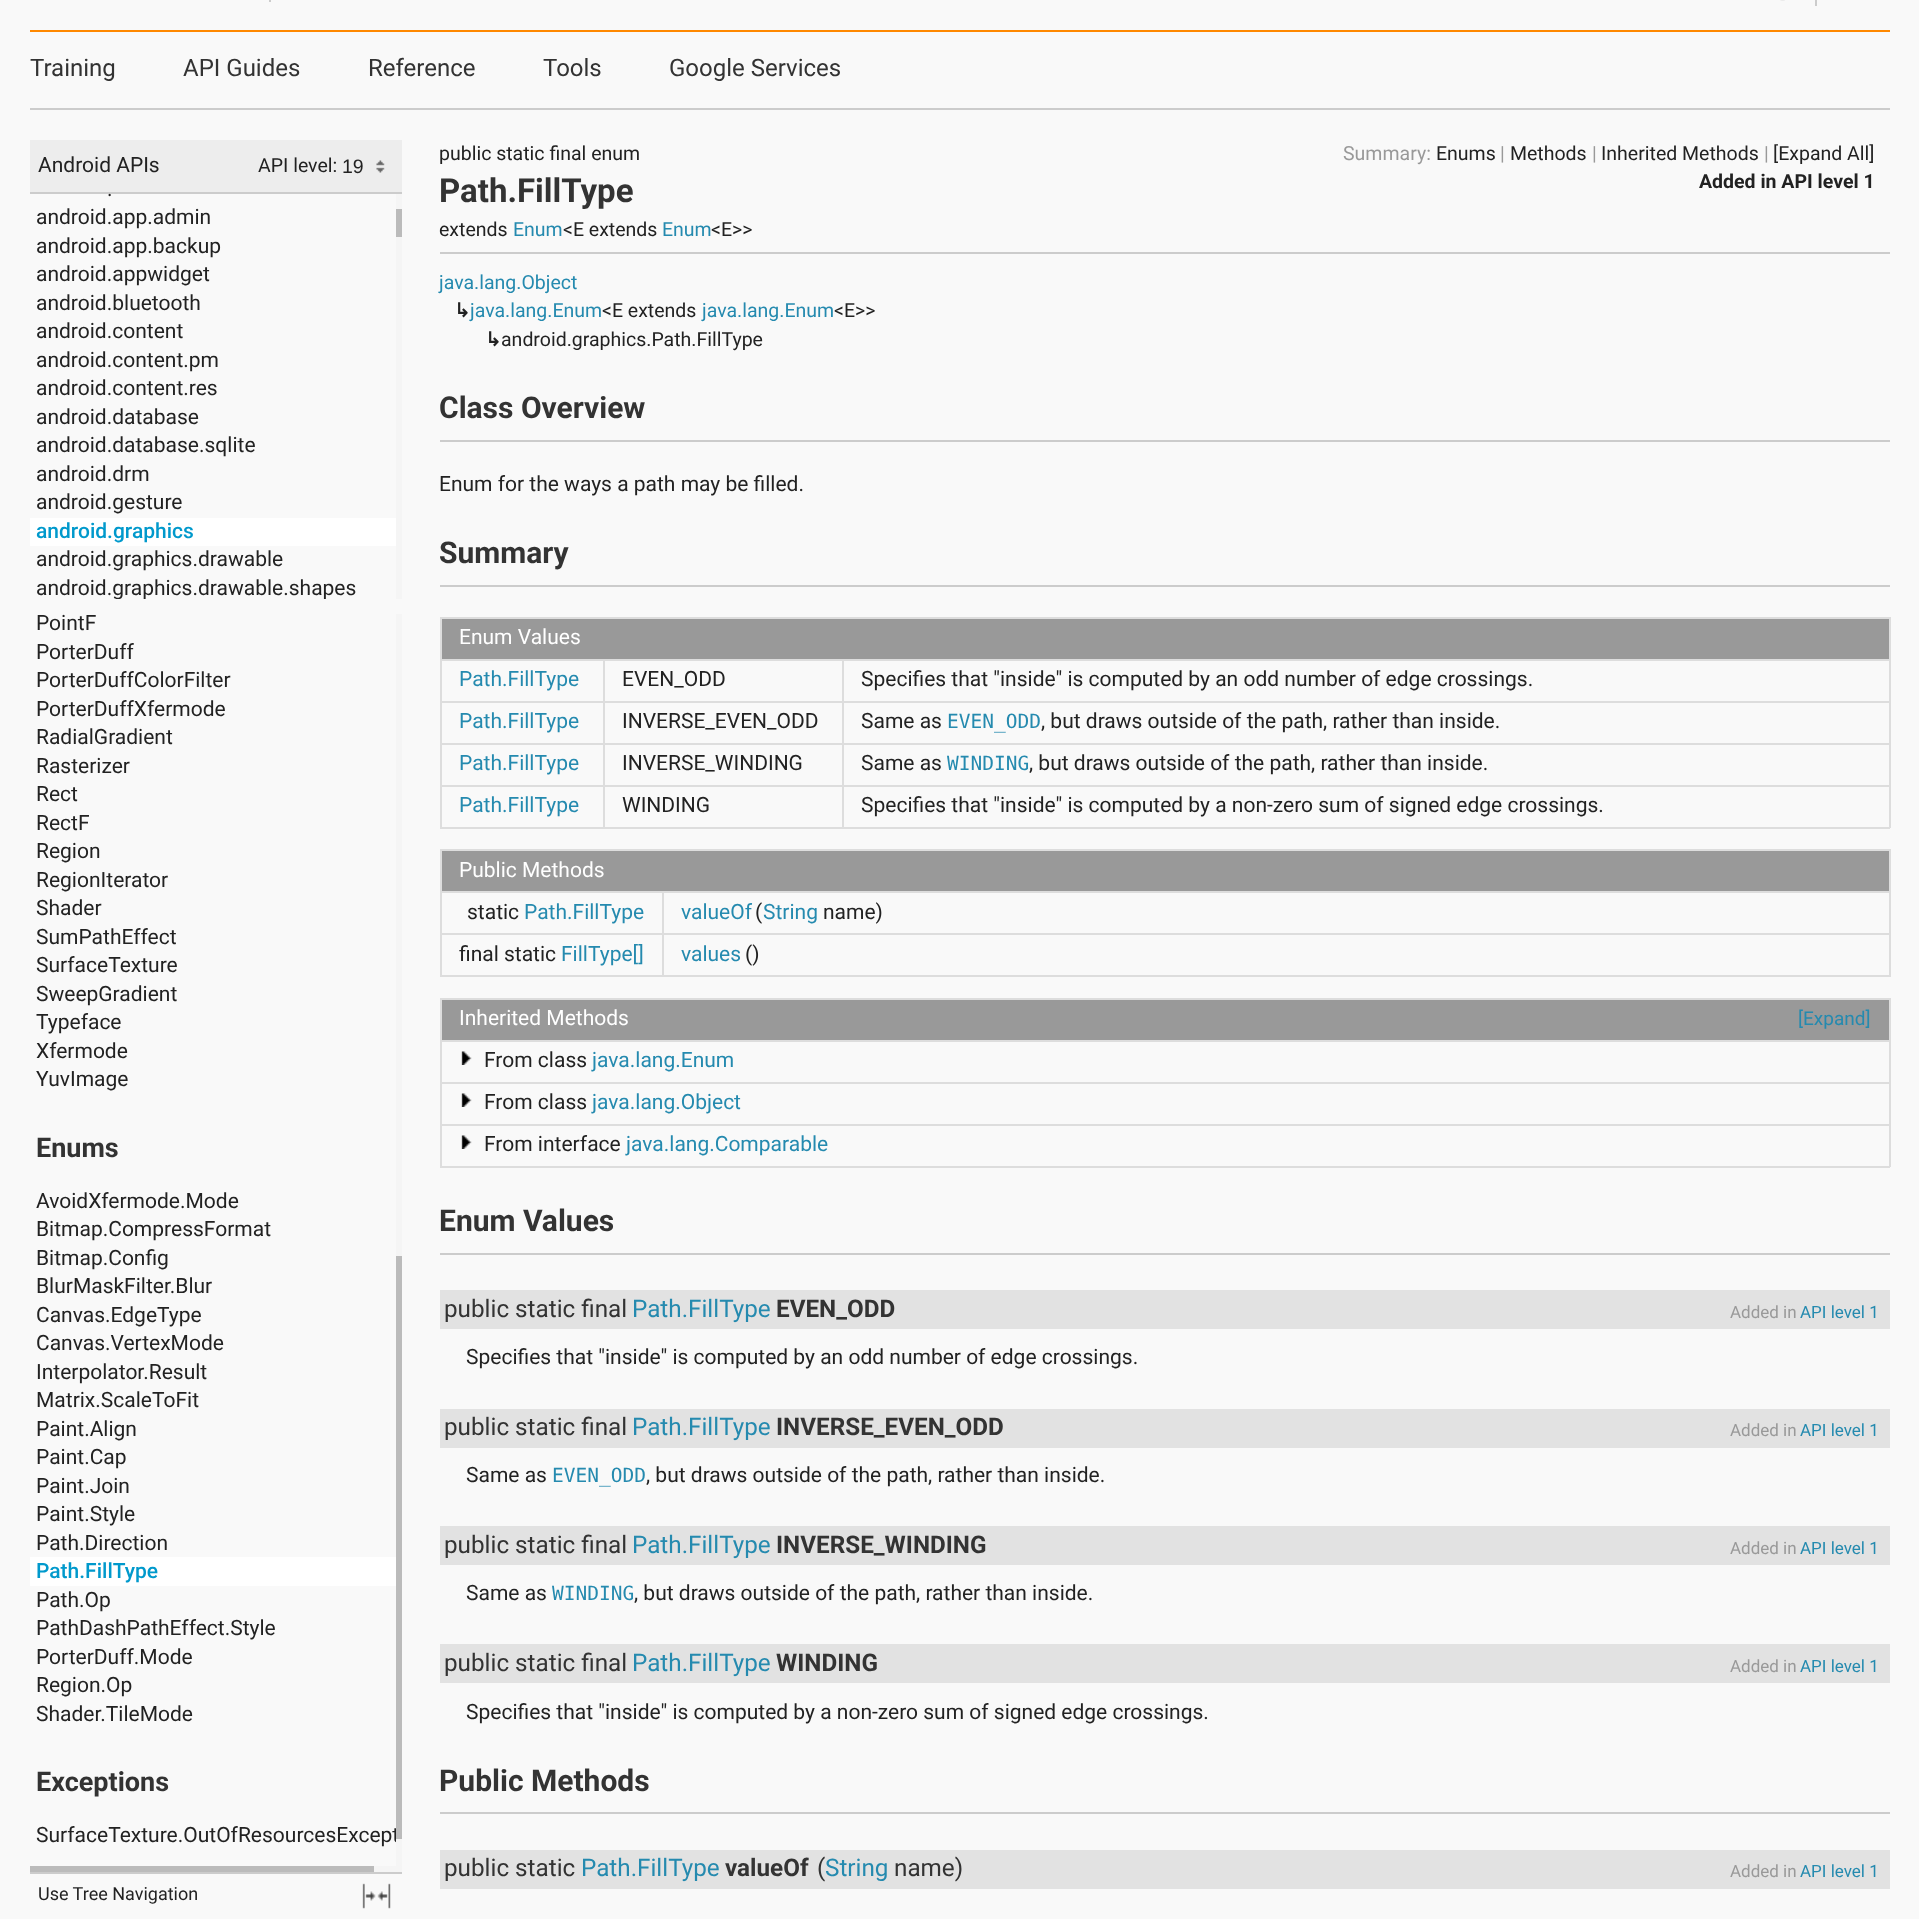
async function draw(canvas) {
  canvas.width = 1919;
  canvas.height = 1919;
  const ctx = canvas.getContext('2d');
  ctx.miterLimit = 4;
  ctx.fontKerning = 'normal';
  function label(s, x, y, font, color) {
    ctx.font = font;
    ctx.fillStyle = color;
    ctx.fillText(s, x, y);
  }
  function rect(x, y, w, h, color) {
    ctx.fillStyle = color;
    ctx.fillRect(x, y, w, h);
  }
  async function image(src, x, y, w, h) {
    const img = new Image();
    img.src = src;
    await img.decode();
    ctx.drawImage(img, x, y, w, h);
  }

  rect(0, 0, 1919, 1919, '#f9f9f9');
  rect(30, 30, 1860, 2, '#f80');
  rect(269, 0, 2, 2, '#ccc');
  await image('assets/img1.png', 1780, 0, 5, 1);
  rect(1815, 0, 2, 6, '#ccc');
  rect(30, 108, 1860, 2, '#ccc');
  label('Training', 30, 76, '24px Roboto', '#333');
  label('API Guides', 183, 76, '24px Roboto', '#333');
  label('Reference', 368, 76, '24px Roboto', '#333');
  label('Tools', 543, 76, '24px Roboto', '#333');
  label('Google Services', 669, 76, '24px Roboto', '#333');
  rect(30, 140, 372, 52, '#ededed');
  rect(30, 192, 372, 2, '#ccc');
  label('Android APIs', 38, 172, '21px Roboto', '#222');
  label('API level:', 258, 172, '19.5px Roboto', '#222');
  await image('assets/img2.png', 376, 160, 9, 13);
  label('19', 342, 173, '19.5px Liberation Sans', '#222');
  label('.', 107, 196, '21px Roboto', '#222');
  label('android.app.admin', 36, 224, '21px Roboto', '#222');
  label('android.app.backup', 36, 253, '21px Roboto', '#222');
  label('android.appwidget', 36, 281, '21px Roboto', '#222');
  label('android.bluetooth', 36, 310, '21px Roboto', '#222');
  label('android.content', 36, 338, '21px Roboto', '#222');
  label('android.content.pm', 36, 367, '21px Roboto', '#222');
  label('android.content.res', 36, 395, '21px Roboto', '#222');
  label('android.database', 36, 424, '21px Roboto', '#222');
  label('android.database.sqlite', 36, 452, '21px Roboto', '#222');
  label('android.drm', 36, 481, '21px Roboto', '#222');
  label('android.gesture', 36, 509, '21px Roboto', '#222');
  rect(30, 518, 366, 28, '#fff');
  label('android.graphics', 36, 538, '500 21px Roboto', '#09c');
  label('android.graphics.drawable', 36, 566, '21px Roboto', '#222');
  ctx.save();
  ctx.beginPath();
  ctx.rect(30, 194, 372, 405);
  ctx.clip();
  label('android.graphics.drawable.shapes', 36, 595, '21px Roboto', '#222');
  ctx.restore();
  rect(396, 194, 6, 405, '#f5f5f5');
  rect(396, 209, 6, 28, '#bbb');
  label('PointF', 36, 630, '21px Roboto', '#222');
  label('PorterDuff', 36, 659, '21px Roboto', '#222');
  label('PorterDuffColorFilter', 36, 687, '21px Roboto', '#222');
  label('PorterDuffXfermode', 36, 716, '21px Roboto', '#222');
  label('RadialGradient', 36, 744, '21px Roboto', '#222');
  label('Rasterizer', 36, 773, '21px Roboto', '#222');
  label('Rect', 36, 801, '21px Roboto', '#222');
  label('RectF', 36, 830, '21px Roboto', '#222');
  label('Region', 36, 858, '21px Roboto', '#222');
  label('RegionIterator', 36, 887, '21px Roboto', '#222');
  label('Shader', 36, 915, '21px Roboto', '#222');
  label('SumPathEffect', 36, 944, '21px Roboto', '#222');
  label('SurfaceTexture', 36, 972, '21px Roboto', '#222');
  label('SweepGradient', 36, 1001, '21px Roboto', '#222');
  label('Typeface', 36, 1029, '21px Roboto', '#222');
  label('Xfermode', 36, 1058, '21px Roboto', '#222');
  label('YuvImage', 36, 1086, '21px Roboto', '#222');
  label('Enums', 36, 1157, 'bold 27px Roboto', '#333');
  label('AvoidXfermode.Mode', 36, 1208, '21px Roboto', '#222');
  label('Bitmap.CompressFormat', 36, 1236, '21px Roboto', '#222');
  label('Bitmap.Config', 36, 1265, '21px Roboto', '#222');
  label('BlurMaskFilter.Blur', 36, 1293, '21px Roboto', '#222');
  label('Canvas.EdgeType', 36, 1322, '21px Roboto', '#222');
  label('Canvas.VertexMode', 36, 1350, '21px Roboto', '#222');
  label('Interpolator.Result', 36, 1379, '21px Roboto', '#222');
  label('Matrix.ScaleToFit', 36, 1407, '21px Roboto', '#222');
  label('Paint.Align', 36, 1436, '21px Roboto', '#222');
  label('Paint.Cap', 36, 1464, '21px Roboto', '#222');
  label('Paint.Join', 36, 1493, '21px Roboto', '#222');
  label('Paint.Style', 36, 1521, '21px Roboto', '#222');
  label('Path.Direction', 36, 1550, '21px Roboto', '#222');
  rect(30, 1557, 366, 29, '#fff');
  label('Path.FillType', 36, 1578, '500 21px Roboto', '#09c');
  label('Path.Op', 36, 1607, '21px Roboto', '#222');
  label('PathDashPathEffect.Style', 36, 1635, '21px Roboto', '#222');
  label('PorterDuff.Mode', 36, 1664, '21px Roboto', '#222');
  label('Region.Op', 36, 1692, '21px Roboto', '#222');
  label('Shader.TileMode', 36, 1721, '21px Roboto', '#222');
  label('Exceptions', 36, 1791, 'bold 27px Roboto', '#333');
  label('SurfaceTexture.OutOfResourcesExcept', 36, 1842, '21px Roboto', '#222');
  rect(396, 614, 6, 1258, '#f5f5f5');
  rect(396, 1256, 6, 583, '#bbb');
  rect(374, 1866, 28, 6, '#f5f5f5');
  rect(30, 1866, 344, 6, '#bbb');
  rect(30, 1872, 372, 2, '#ccc');
  label('Use Tree Navigation', 38, 1900, '18px Roboto', '#222');
  await image('assets/img3.png', 362, 1883, 29, 26);
  rect(440, 252, 1450, 2, '#ccc');
  label('public static final enum', 439, 160, '19.5px Roboto', '#222');
  label('Path.FillType', 439, 202, 'bold 33px Roboto', '#333');
  label('extends', 439, 236, '19.5px Roboto', '#222');
  label('Enum', 513, 236, '19.5px Roboto', '#258aaf');
  label('<E extends', 563, 236, '19.5px Roboto', '#222');
  label('Enum', 662, 236, '19.5px Roboto', '#258aaf');
  label('<E>>', 711, 236, '19.5px Roboto', '#222');
  label('Summary:', 1343, 160, '19.5px Roboto', '#999');
  label('Enums', 1436, 160, '19.5px Roboto', '#222');
  label('|', 1500, 160, '19.5px Roboto', '#999');
  label('Methods', 1510, 160, '19.5px Roboto', '#222');
  label('|', 1592, 160, '19.5px Roboto', '#999');
  label('Inherited Methods', 1601, 160, '19.5px Roboto', '#222');
  label('|', 1764, 160, '19.5px Roboto', '#999');
  label('[Expand All]', 1773, 160, '19.5px Roboto', '#222');
  label('Added in API level 1', 1699, 188, 'bold 19.5px Roboto', '#222');
  label('java.lang.Object', 439, 289, '19.5px Roboto', '#258aaf');
  label('↳', 454, 317, 'bold 19.5px DejaVu Sans', '#222');
  label('java.lang.Enum', 470, 317, '19.5px Roboto', '#258aaf');
  label('<E extends', 602, 317, '19.5px Roboto', '#222');
  label('java.lang.Enum', 702, 317, '19.5px Roboto', '#258aaf');
  label('<E>>', 834, 317, '19.5px Roboto', '#222');
  label('↳', 485, 346, 'bold 19.5px DejaVu Sans', '#222');
  label('android.graphics.Path.FillType', 501, 346, '19.5px Roboto', '#222');
  label('Class Overview', 439, 418, 'bold 30px Roboto', '#333');
  rect(440, 440, 1450, 2, '#ccc');
  label('Enum for the ways a path may be filled.', 439, 491, '21px Roboto', '#222');
  label('Summary', 439, 563, 'bold 30px Roboto', '#333');
  rect(440, 585, 1450, 2, '#ccc');
  rect(442, 619, 1447, 40, '#999');
  rect(440, 617, 1450, 2, '#ddd');
  rect(842, 659, 1048, 2, '#ddd');
  rect(842, 701, 1048, 2, '#ddd');
  rect(842, 743, 1048, 2, '#ddd');
  rect(842, 785, 1048, 2, '#ddd');
  rect(1889, 785, 2, 43, '#ddd');
  rect(1889, 743, 2, 43, '#ddd');
  rect(1889, 701, 2, 43, '#ddd');
  rect(1889, 659, 2, 43, '#ddd');
  rect(1889, 617, 2, 43, '#ddd');
  rect(842, 827, 1048, 2, '#ddd');
  rect(842, 785, 2, 43, '#ddd');
  rect(603, 785, 240, 2, '#ddd');
  rect(842, 743, 2, 43, '#ddd');
  rect(603, 743, 240, 2, '#ddd');
  rect(842, 701, 2, 43, '#ddd');
  rect(603, 701, 240, 2, '#ddd');
  rect(842, 659, 2, 43, '#ddd');
  rect(603, 659, 240, 2, '#ddd');
  rect(603, 827, 240, 2, '#ddd');
  rect(603, 785, 2, 43, '#ddd');
  rect(440, 785, 165, 2, '#ddd');
  rect(603, 743, 2, 43, '#ddd');
  rect(440, 743, 165, 2, '#ddd');
  rect(603, 701, 2, 43, '#ddd');
  rect(440, 701, 165, 2, '#ddd');
  rect(603, 659, 2, 43, '#ddd');
  rect(440, 659, 165, 2, '#ddd');
  rect(440, 827, 165, 2, '#ddd');
  rect(440, 785, 2, 43, '#ddd');
  rect(440, 743, 2, 43, '#ddd');
  rect(440, 701, 2, 43, '#ddd');
  rect(440, 659, 2, 43, '#ddd');
  rect(440, 617, 2, 43, '#ddd');
  label('Enum Values', 459, 644, '21px Roboto', '#fff');
  label('Path.FillType', 459, 686, '21px Roboto', '#258aaf');
  label('EVEN_ODD', 622, 686, '21px Roboto', '#222');
  label('Specifies that "inside" is computed by an odd number of edge crossings.', 861, 686, '21px Roboto', '#222');
  label('Path.FillType', 459, 728, '21px Roboto', '#258aaf');
  label('INVERSE_EVEN_ODD', 622, 728, '21px Roboto', '#222');
  label('Same as', 861, 728, '21px Roboto', '#222');
  label('EVEN_ODD', 947, 728, '19.5px DejaVu Sans Mono', '#258aaf');
  label(', but draws outside of the path, rather than inside.', 1041, 728, '21px Roboto', '#222');
  label('Path.FillType', 459, 770, '21px Roboto', '#258aaf');
  label('INVERSE_WINDING', 622, 770, '21px Roboto', '#222');
  label('Same as', 861, 770, '21px Roboto', '#222');
  label('WINDING', 947, 770, '19.5px DejaVu Sans Mono', '#258aaf');
  label(', but draws outside of the path, rather than inside.', 1029, 770, '21px Roboto', '#222');
  label('Path.FillType', 459, 812, '21px Roboto', '#258aaf');
  label('WINDING', 622, 812, '21px Roboto', '#222');
  label('Specifies that "inside" is computed by a non-zero sum of signed edge crossings.', 861, 812, '21px Roboto', '#222');
  rect(442, 851, 1447, 40, '#999');
  rect(440, 849, 1450, 2, '#ddd');
  rect(662, 891, 1228, 2, '#ddd');
  rect(662, 933, 1228, 2, '#ddd');
  rect(1889, 933, 2, 44, '#ddd');
  rect(1889, 891, 2, 44, '#ddd');
  rect(1889, 849, 2, 44, '#ddd');
  rect(662, 975, 1228, 2, '#ddd');
  rect(662, 933, 2, 44, '#ddd');
  rect(440, 933, 223, 2, '#ddd');
  rect(662, 891, 2, 44, '#ddd');
  rect(440, 891, 223, 2, '#ddd');
  rect(440, 975, 223, 2, '#ddd');
  rect(440, 933, 2, 44, '#ddd');
  rect(440, 891, 2, 44, '#ddd');
  rect(440, 849, 2, 44, '#ddd');
  label('Public Methods', 459, 877, '21px Roboto', '#fff');
  label('static', 467, 919, '21px Roboto', '#222');
  label('Path.FillType', 524, 919, '21px Roboto', '#258aaf');
  label('valueOf', 681, 919, '21px Roboto', '#258aaf');
  label('(', 755, 919, '21px Roboto', '#222');
  label('String', 763, 919, '21px Roboto', '#258aaf');
  label('name)', 823, 919, '21px Roboto', '#222');
  label('final static', 459, 961, '21px Roboto', '#222');
  label('FillType[]', 561, 961, '21px Roboto', '#258aaf');
  label('values', 681, 961, '21px Roboto', '#258aaf');
  label('()', 745, 961, '21px Roboto', '#222');
  rect(442, 1000, 1447, 40, '#999');
  rect(440, 998, 1450, 2, '#ddd');
  rect(440, 1040, 1450, 2, '#ddd');
  rect(440, 1082, 1450, 2, '#ddd');
  rect(440, 1124, 1450, 2, '#ddd');
  rect(1889, 1124, 2, 43, '#ddd');
  rect(1889, 1082, 2, 43, '#ddd');
  rect(1889, 1040, 2, 43, '#ddd');
  rect(1889, 998, 2, 43, '#ddd');
  rect(440, 1166, 1450, 2, '#ddd');
  rect(440, 1124, 2, 43, '#ddd');
  rect(440, 1082, 2, 43, '#ddd');
  rect(440, 1040, 2, 43, '#ddd');
  rect(440, 998, 2, 43, '#ddd');
  label('Inherited Methods', 459, 1025, '21px Roboto', '#fff');
  label('[Expand]', 1798, 1025, '19px Roboto', '#258aaf');
  await image('assets/img4.png', 461, 1051, 11, 14);
  label('From class', 484, 1067, '21px Roboto', '#222');
  label('java.lang.Enum', 592, 1067, '21px Roboto', '#258aaf');
  await image('assets/img4.png', 461, 1093, 11, 14);
  label('From class', 484, 1109, '21px Roboto', '#222');
  label('java.lang.Object', 592, 1109, '21px Roboto', '#258aaf');
  await image('assets/img4.png', 461, 1135, 11, 14);
  label('From interface', 484, 1151, '21px Roboto', '#222');
  label('java.lang.Comparable', 626, 1151, '21px Roboto', '#258aaf');
  label('Enum Values', 439, 1231, 'bold 30px Roboto', '#333');
  rect(440, 1253, 1450, 2, '#ccc');
  rect(440, 1290, 1450, 39, '#e2e2e2');
  label('public static final', 444, 1317, '24.25px Roboto', '#333');
  label('Path.FillType', 632, 1317, '24.25px Roboto', '#258aaf');
  label('EVEN_ODD', 776, 1317, 'bold 24.25px Roboto', '#333');
  label('Added in', 1730, 1318, '17px Roboto', '#999');
  label('API level 1', 1800, 1318, '17px Roboto', '#258aaf');
  label('Specifies that "inside" is computed by an odd number of edge crossings.', 466, 1364, '21px Roboto', '#222');
  rect(440, 1409, 1450, 39, '#e2e2e2');
  label('public static final', 444, 1435, '24.25px Roboto', '#333');
  label('Path.FillType', 632, 1435, '24.25px Roboto', '#258aaf');
  label('INVERSE_EVEN_ODD', 776, 1435, 'bold 24.25px Roboto', '#333');
  label('Added in', 1730, 1436, '17px Roboto', '#999');
  label('API level 1', 1800, 1436, '17px Roboto', '#258aaf');
  label('Same as', 466, 1482, '21px Roboto', '#222');
  label('EVEN_ODD', 552, 1482, '19.5px DejaVu Sans Mono', '#258aaf');
  label(', but draws outside of the path, rather than inside.', 646, 1482, '21px Roboto', '#222');
  rect(440, 1526, 1450, 39, '#e2e2e2');
  label('public static final', 444, 1553, '24.25px Roboto', '#333');
  label('Path.FillType', 632, 1553, '24.25px Roboto', '#258aaf');
  label('INVERSE_WINDING', 776, 1553, 'bold 24.25px Roboto', '#333');
  label('Added in', 1730, 1554, '17px Roboto', '#999');
  label('API level 1', 1800, 1554, '17px Roboto', '#258aaf');
  label('Same as', 466, 1600, '21px Roboto', '#222');
  label('WINDING', 552, 1600, '19.5px DejaVu Sans Mono', '#258aaf');
  label(', but draws outside of the path, rather than inside.', 634, 1600, '21px Roboto', '#222');
  rect(440, 1644, 1450, 39, '#e2e2e2');
  label('public static final', 444, 1671, '24.25px Roboto', '#333');
  label('Path.FillType', 632, 1671, '24.25px Roboto', '#258aaf');
  label('WINDING', 776, 1671, 'bold 24.25px Roboto', '#333');
  label('Added in', 1730, 1672, '17px Roboto', '#999');
  label('API level 1', 1800, 1672, '17px Roboto', '#258aaf');
  label('Specifies that "inside" is computed by a non-zero sum of signed edge crossings.', 466, 1719, '21px Roboto', '#222');
  label('Public Methods', 439, 1791, 'bold 30px Roboto', '#333');
  rect(440, 1812, 1450, 2, '#ccc');
  rect(440, 1850, 1450, 39, '#e2e2e2');
  label('public static', 444, 1876, '24.25px Roboto', '#333');
  label('Path.FillType', 581, 1876, '24.25px Roboto', '#258aaf');
  label('valueOf', 725, 1876, 'bold 24.25px Roboto', '#333');
  label('(', 817, 1876, '24.25px Roboto', '#333');
  label('String', 825, 1876, '24.25px Roboto', '#258aaf');
  label('name)', 894, 1876, '24.25px Roboto', '#333');
  label('Added in', 1730, 1877, '17px Roboto', '#999');
  label('API level 1', 1800, 1877, '17px Roboto', '#258aaf');
}

draw(document.querySelector('canvas'));
